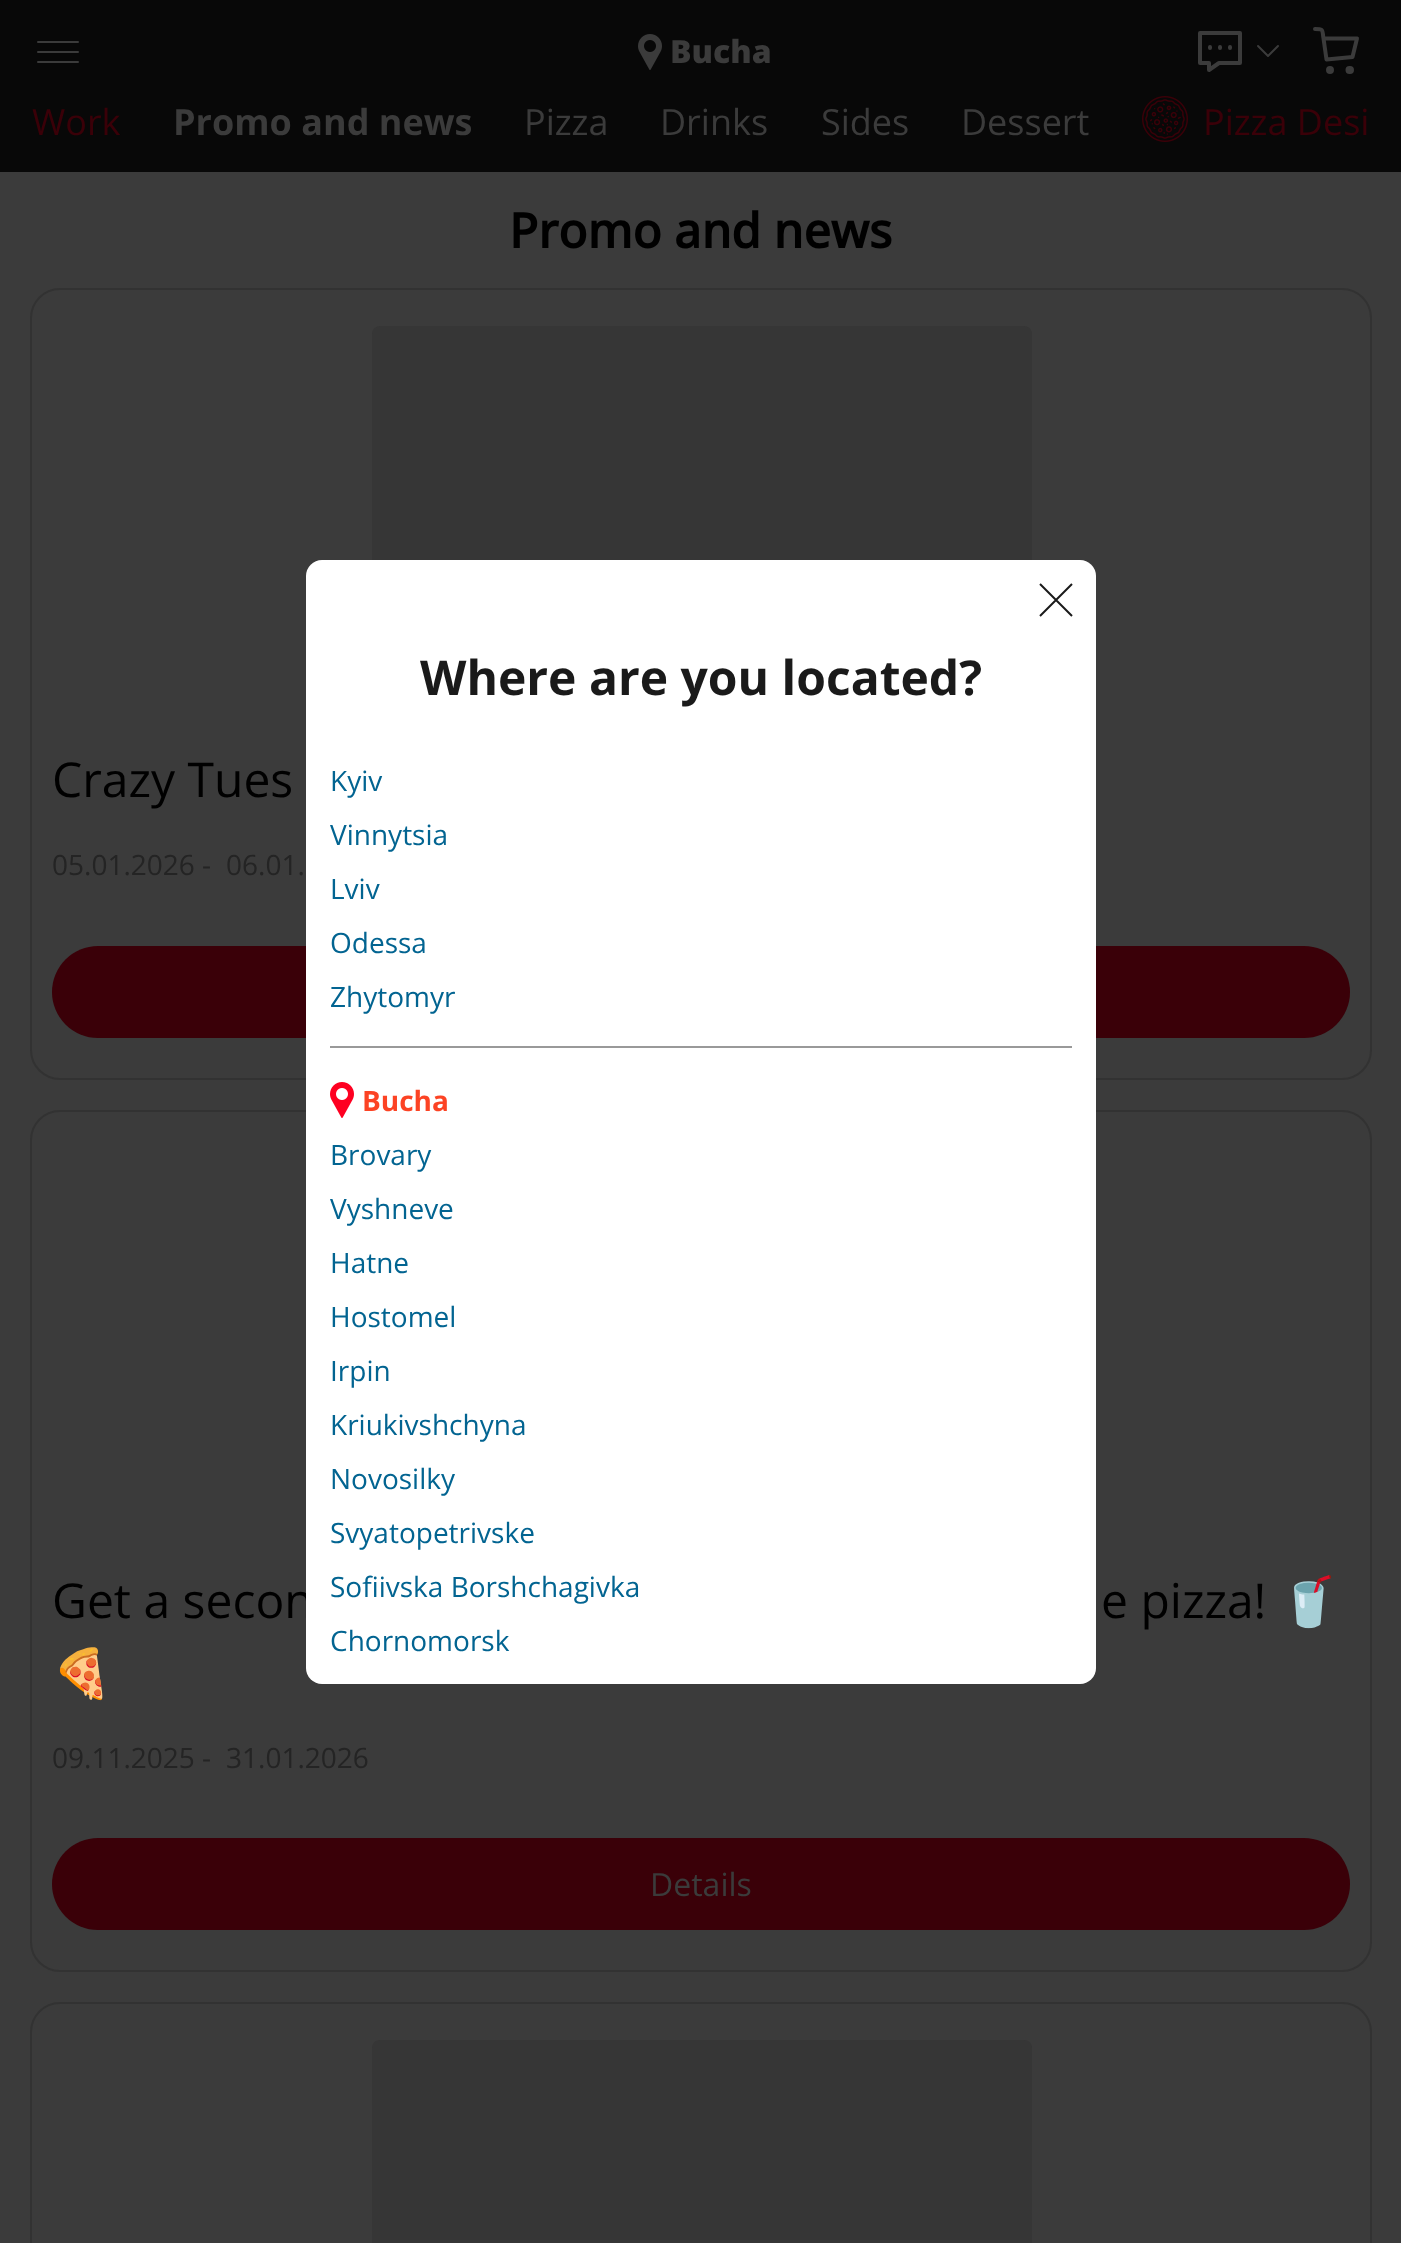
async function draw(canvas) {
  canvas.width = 1401;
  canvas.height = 2243;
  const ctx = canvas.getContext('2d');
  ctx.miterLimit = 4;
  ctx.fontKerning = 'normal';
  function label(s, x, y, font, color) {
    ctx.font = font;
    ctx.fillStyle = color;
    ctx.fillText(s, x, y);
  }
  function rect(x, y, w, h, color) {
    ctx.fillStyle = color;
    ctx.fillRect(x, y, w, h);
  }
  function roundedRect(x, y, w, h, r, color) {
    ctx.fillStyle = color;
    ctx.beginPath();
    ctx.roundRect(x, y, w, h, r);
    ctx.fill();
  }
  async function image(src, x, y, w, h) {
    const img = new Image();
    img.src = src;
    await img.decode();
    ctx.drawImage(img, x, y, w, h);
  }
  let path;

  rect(0, 0, 1401, 2243, '#3b3b3b');
  rect(0, 0, 1401, 172, '#080808');
  path = new Path2D('M78 42H38M78 52H38M78 62H38');
  ctx.strokeStyle = '#3b3b3b';
  ctx.lineWidth = 2;
  ctx.lineCap = 'round';
  ctx.stroke(path);
  await image('assets/img1.png', 638, 34, 24, 36);
  label('Bucha', 670, 63, '800 32px Open Sans', '#3b3b3b');
  path = new Path2D('M1210 47V48M1220 47V48M1230 47V48M1240 33H1200V63H1209V70L1219 63H1240Z');
  ctx.lineWidth = 4;
  ctx.lineJoin = 'round';
  ctx.stroke(path);
  path = new Path2D('M1258 46L1268 56L1278 46');
  ctx.lineWidth = 2;
  ctx.stroke(path);
  path = new Path2D('M1315 29C1324 29 1322 29.5 1323.5 38.5M1323.5 38.5L1326.5 59.5L1352.5 57L1357 38.5Z');
  ctx.lineWidth = 4;
  ctx.stroke(path);
  path = new Path2D('M1330 70H1330M1349.5 70H1350');
  ctx.lineWidth = 8;
  ctx.stroke(path);
  label('Work', 32, 135, '36px Open Sans', '#3a0008');
  label('Promo and news', 173, 135, 'bold 36px "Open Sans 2"', '#3b3b3b');
  label('Pizza', 524, 135, '36px Open Sans', '#3b3b3b');
  label('Drinks', 660, 135, '36px Open Sans', '#3b3b3b');
  label('Sides', 821, 135, '36px Open Sans', '#3b3b3b');
  label('Dessert', 961, 135, '36px Open Sans', '#3b3b3b');
  await image('assets/img2.png', 1142, 96, 46, 46);
  label('Pizza Desi', 1203, 135, '36px Open Sans', '#3a0008');
  label('Promo and news', 509, 248, 'bold 48px Open Sans', '#000');
  ctx.beginPath();
  ctx.roundRect(31, 289, 1340, 790, 29);
  ctx.strokeStyle = '#323232';
  ctx.lineWidth = 2;
  ctx.lineJoin = 'miter';
  ctx.stroke();
  roundedRect(372, 326, 660, 390, 8, '#363636');
  label('Crazy Tues', 52, 797, '48px Open Sans', '#000');
  label('05.01.2026 -', 52, 875, '28px Open Sans', '#242424');
  label('06.01.', 226, 875, '28px Open Sans', '#242424');
  roundedRect(52, 946, 1298, 92, 46, '#3a0008');
  ctx.beginPath();
  ctx.roundRect(31, 1111, 1340, 860, 29);
  ctx.stroke();
  label('Get a secon', 52, 1618, '48px Open Sans', '#000');
  label('e pizza!', 1101, 1618, '48px Open Sans', '#000');
  label('🥤', 1279, 1618, '48px Noto Color Emoji', '#000');
  label('🍕', 52, 1690, '48px Noto Color Emoji', '#000');
  label('09.11.2025 -', 52, 1768, '28px Open Sans', '#242424');
  label('31.01.2026', 226, 1768, '28px Open Sans', '#242424');
  roundedRect(52, 1838, 1298, 92, 46, '#3a0008');
  label('Details', 650, 1896, '32px Open Sans', '#3b3b3b');
  ctx.beginPath();
  ctx.roundRect(31, 2003, 1340, 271, 29);
  ctx.stroke();
  ctx.fillStyle = '#363636';
  path = new Path2D('M380 2040H1024C1028.5 2040 1032 2043.5 1032 2048V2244H372V2048C372 2043.5 375.5 2040 380 2040Z');
  ctx.fill(path);
  roundedRect(306, 560, 790, 1124, 16, '#fff');
  path = new Path2D('M1040 584L1056 600M1056 600L1040 616M1056 600L1072 584M1056 600L1072 616');
  ctx.strokeStyle = '#1a1a1a';
  ctx.lineCap = 'butt';
  ctx.stroke(path);
  label('Where are you located?', 420, 695, 'bold 48px "Open Sans 2"', '#1a1a1a');
  label('Kyiv', 330, 791, '28px Open Sans', '#026491');
  label('Vinnytsia', 330, 845, '28px Open Sans', '#026491');
  label('Lviv', 330, 899, '28px Open Sans', '#026491');
  label('Odessa', 330, 953, '28px Open Sans', '#026491');
  label('Zhytomyr', 330, 1007, '28px Open Sans', '#026491');
  rect(330, 1046, 742, 2, '#999');
  await image('assets/img3.png', 330, 1082, 24, 36);
  label('Bucha', 362, 1111, 'bold 28px "Open Sans 2"', '#fc4324');
  label('Brovary', 330, 1165, '28px Open Sans', '#026491');
  label('Vyshneve', 330, 1219, '28px Open Sans', '#026491');
  label('Hatne', 330, 1273, '28px Open Sans', '#026491');
  label('Hostomel', 330, 1327, '28px Open Sans', '#026491');
  label('Irpin', 330, 1381, '28px Open Sans', '#026491');
  label('Kriukivshchyna', 330, 1435, '28px Open Sans', '#026491');
  label('Novosilky', 330, 1489, '28px Open Sans', '#026491');
  label('Svyatopetrivske', 330, 1543, '28px Open Sans', '#026491');
  label('Sofiivska Borshchagivka', 330, 1597, '28px Open Sans', '#026491');
  label('Chornomorsk', 330, 1651, '28px Open Sans', '#026491');
}

draw(document.querySelector('canvas'));
